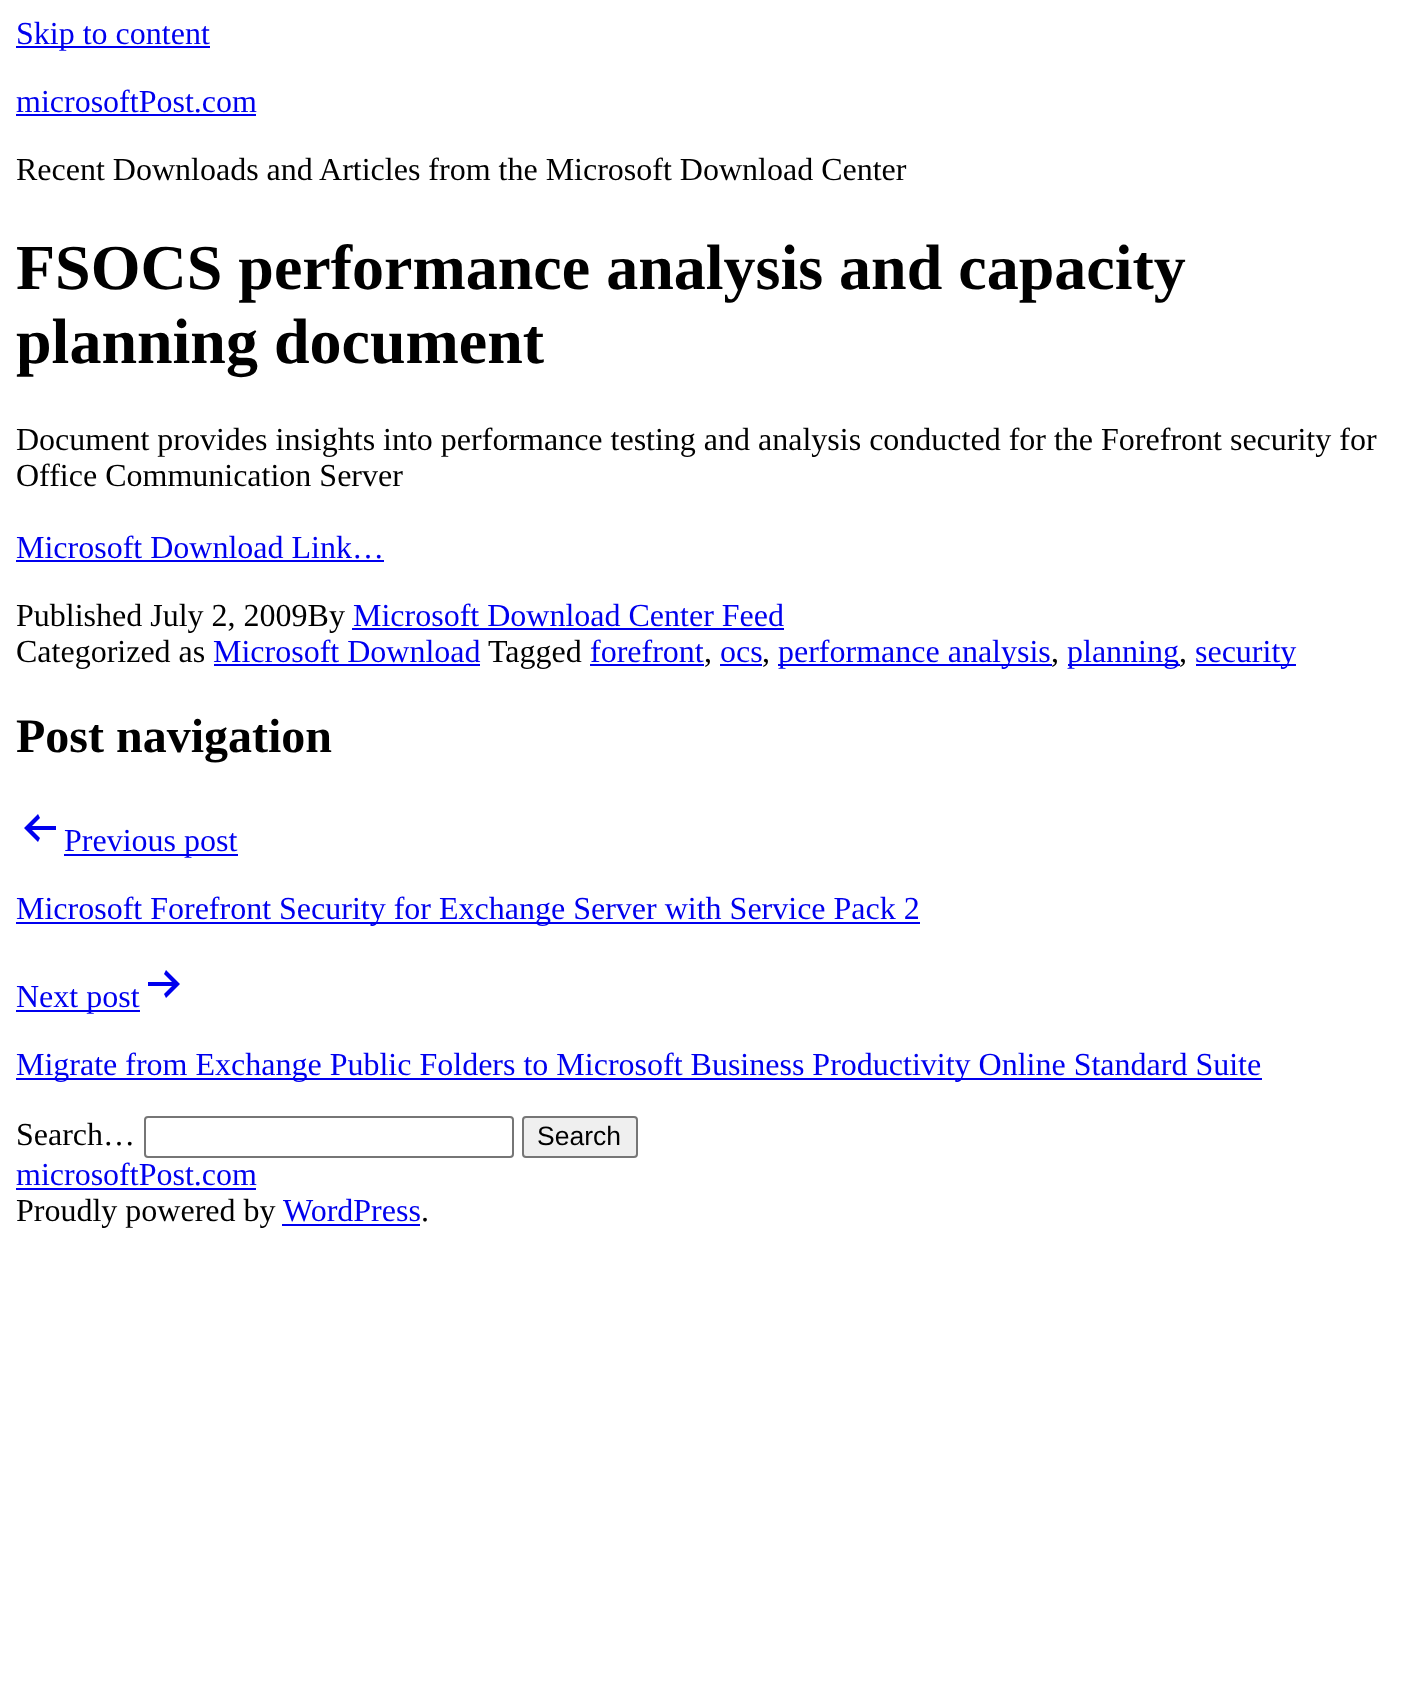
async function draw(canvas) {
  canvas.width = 1421;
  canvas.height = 1707;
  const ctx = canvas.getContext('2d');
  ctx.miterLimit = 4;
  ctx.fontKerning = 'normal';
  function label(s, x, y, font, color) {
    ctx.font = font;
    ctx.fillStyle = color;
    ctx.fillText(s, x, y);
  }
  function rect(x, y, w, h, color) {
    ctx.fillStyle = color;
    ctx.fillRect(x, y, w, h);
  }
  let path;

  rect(0, 0, 1421, 1707, '#fff');
  rect(16, 46, 194, 2, '#00e');
  label('Skip to content', 16, 44, '32px Liberation Serif', '#00e');
  label('microsoftPost.com', 16, 112, '32px Liberation Serif', '#00e');
  rect(16, 114, 240, 2, '#00e');
  label('Recent Downloads and Articles from the Microsoft Download Center', 16, 180, '32px Liberation Serif', '#000');
  label('FSOCS performance analysis and capacity', 16, 289, 'bold 64px Liberation Serif', '#000');
  label('planning document', 16, 363, 'bold 64px Liberation Serif', '#000');
  label('Document provides insights into performance testing and analysis conducted for the Forefront security for', 16, 450, '32px Liberation Serif', '#000');
  label('Office Communication Server', 16, 486, '32px Liberation Serif', '#000');
  label('Microsoft Download Link…', 16, 558, '32px Liberation Serif', '#00e');
  rect(16, 560, 368, 2, '#00e');
  label('Published July 2, 2009By', 16, 626, '32px Liberation Serif', '#000');
  label('Microsoft Download Center Feed', 353, 626, '32px Liberation Serif', '#00e');
  rect(352, 628, 432, 2, '#00e');
  label('Categorized as', 16, 662, '32px Liberation Serif', '#000');
  label('Microsoft Download', 213, 662, '32px Liberation Serif', '#00e');
  rect(214, 664, 266, 2, '#00e');
  label('Tagged', 488, 662, '32px Liberation Serif', '#000');
  label('forefront', 590, 662, '32px Liberation Serif', '#00e');
  label(',', 704, 662, '32px Liberation Serif', '#000');
  rect(590, 664, 114, 2, '#00e');
  label('ocs', 720, 662, '32px Liberation Serif', '#00e');
  label(',', 762, 662, '32px Liberation Serif', '#000');
  rect(720, 664, 42, 2, '#00e');
  rect(778, 664, 274, 2, '#00e');
  label('performance analysis', 778, 662, '32px Liberation Serif', '#00e');
  label(',', 1051, 662, '32px Liberation Serif', '#000');
  rect(1068, 664, 112, 2, '#00e');
  label('planning', 1067, 662, '32px Liberation Serif', '#00e');
  label(',', 1179, 662, '32px Liberation Serif', '#000');
  rect(1196, 664, 100, 2, '#00e');
  label('security', 1195, 662, '32px Liberation Serif', '#00e');
  label('Post navigation', 16, 752, 'bold 48px Liberation Serif', '#000');
  ctx.fillStyle = '#00e';
  path = new Path2D('M56 830V826H32L40 818L38 814L24 828L38 842L40 838L32 830Z');
  ctx.fill(path, 'evenodd');
  rect(64, 854, 174, 2, '#00e');
  label('Previous post', 64, 851, '32px Liberation Serif', '#00e');
  rect(16, 922, 904, 2, '#00e');
  label('Microsoft Forefront Security for Exchange Server with Service Pack 2', 16, 919, '32px Liberation Serif', '#00e');
  rect(16, 1010, 124, 2, '#00e');
  label('Next post', 16, 1007, '32px Liberation Serif', '#00e');
  path = new Path2D('M148 986V982H172L164 974L166 970L180 984L166 998L164 994L172 986Z');
  ctx.fill(path, 'evenodd');
  rect(16, 1078, 1246, 2, '#00e');
  label('Migrate from Exchange Public Folders to Microsoft Business Productivity Online Standard Suite', 16, 1075, '32px Liberation Serif', '#00e');
  label('Search…', 16, 1145, '32px Liberation Serif', '#000');
  ctx.beginPath();
  ctx.roundRect(145, 1117, 368, 40, 3);
  ctx.strokeStyle = '#767676';
  ctx.lineWidth = 2;
  ctx.stroke();
  ctx.fillStyle = '#efefef';
  ctx.beginPath();
  ctx.roundRect(523, 1117, 114, 40, 3);
  ctx.fill();
  ctx.stroke();
  label('Search', 537, 1145, '26.5px Liberation Sans', '#000');
  label('microsoftPost.com', 16, 1185, '32px Liberation Serif', '#00e');
  rect(16, 1188, 240, 2, '#00e');
  label('Proudly powered by', 16, 1221, '32px Liberation Serif', '#000');
  label('WordPress', 283, 1221, '32px Liberation Serif', '#00e');
  rect(282, 1224, 138, 2, '#00e');
  label('.', 421, 1221, '32px Liberation Serif', '#000');
}

draw(document.querySelector('canvas'));
